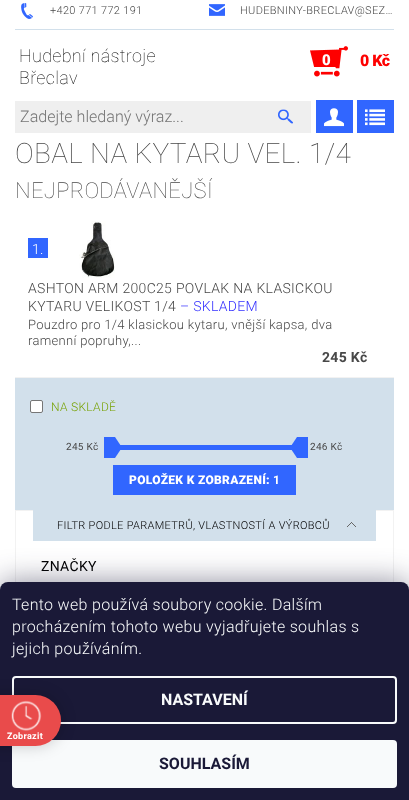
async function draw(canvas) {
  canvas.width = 409;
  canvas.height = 800;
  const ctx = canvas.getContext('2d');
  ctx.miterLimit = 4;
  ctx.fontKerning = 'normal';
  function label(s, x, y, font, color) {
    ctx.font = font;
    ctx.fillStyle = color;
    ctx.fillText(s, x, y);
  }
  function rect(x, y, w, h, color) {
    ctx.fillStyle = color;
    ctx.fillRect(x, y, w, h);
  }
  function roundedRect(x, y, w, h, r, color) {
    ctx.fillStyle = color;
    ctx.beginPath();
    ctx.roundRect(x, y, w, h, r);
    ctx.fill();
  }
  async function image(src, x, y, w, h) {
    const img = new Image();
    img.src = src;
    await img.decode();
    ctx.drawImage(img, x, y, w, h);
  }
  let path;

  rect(0, 0, 409, 800, '#fff');
  rect(15, 29, 379, 1, '#d2e0eb');
  await image('assets/img1.png', 21, 3, 12, 16);
  ctx.letterSpacing = '0.32px';
  label('+420 771 772 191', 50, 14, '300 11px Roboto', '#484848');
  await image('assets/img2.png', 209, 4, 16, 12);
  label('HUDEBNINY-BRECLAV@SEZ…', 240, 14, '300 11px Roboto', '#484848');
  label('Hudební nástroje', 19, 62, '100 18px Roboto', '#000');
  label('Břeclav', 19, 84, '100 18px Roboto', '#000');
  await image('assets/img3.png', 310, 46, 38, 31);
  ctx.letterSpacing = '-0.5px';
  label('0', 322, 65, '900 15px Roboto', '#fff');
  label('0 Kč', 360, 66, '900 16px Roboto', '#fe0000');
  rect(15, 101, 296, 32, '#efefef');
  ctx.letterSpacing = '0px';
  label('Zadejte hledaný výraz...', 20, 122, '300 16.1px Roboto', '#757575');
  rect(278, 109, 15, 15, '#3166ff');
  await image('assets/img4.png', 278, 108, 16, 17);
  rect(316, 100, 37, 33, '#3166ff');
  await image('assets/img5.png', 324, 108, 20, 19);
  rect(357, 100, 37, 33, '#3166ff');
  await image('assets/img6.png', 365, 109, 20, 17);
  ctx.letterSpacing = '0.32px';
  label('OBAL NA KYTARU VEL. 1/4', 15, 163, '100 28px Roboto', '#484848');
  label('NEJPRODÁVANĚJŠÍ', 15, 198, '100 22px Roboto', '#484848');
  rect(15, 377, 379, 1, '#f2f2f2');
  rect(28, 238, 20, 20, '#3166ff');
  label('1.', 32, 254, '300 14px Roboto', '#fff');
  await image('assets/img7.png', 79, 221, 36, 57);
  label('ASHTON ARM 200C25 POVLAK NA KLASICKOU', 28, 293, '300 14px Roboto', '#484848');
  label('KYTARU VELIKOST 1/4', 28, 311, '300 14px Roboto', '#484848');
  label('– SKLADEM', 180, 311, '300 14px Roboto', '#3531ff');
  label('Pouzdro pro 1/4 klasickou kytaru, vnější kapsa, dva', 28, 329, '300 13px Roboto', '#484848');
  label('ramenní popruhy,...', 28, 345, '300 13px Roboto', '#484848');
  label('245 Kč', 322, 362, 'bold 14px Roboto', '#484848');
  rect(15, 378, 379, 132, '#d2e0eb');
  ctx.fillStyle = '#fff';
  ctx.beginPath();
  ctx.roundRect(30.5, 400.5, 12, 12, 1.5);
  ctx.fill();
  ctx.strokeStyle = '#767676';
  ctx.stroke();
  label('NA SKLADĚ', 51, 411, '300 12px Roboto', '#78a206');
  label('245 Kč', 66, 450, '10px Roboto', '#484848');
  rect(115, 445, 179, 5, '#3166ff');
  path = new Path2D('M115 458V437L121 446V449Z');
  ctx.fill(path);
  rect(104, 437, 11, 21, '#3166ff');
  path = new Path2D('M297 437V458L291 449V446Z');
  ctx.fill(path);
  rect(297, 437, 11, 21, '#3166ff');
  label('246 Kč', 310, 450, '10px Roboto', '#484848');
  rect(113, 465, 183, 30, '#3166ff');
  label('POLOŽEK K ZOBRAZENÍ:', 129, 484, '900 12px Roboto', '#fff');
  label('1', 273, 484, 'bold 12px Roboto', '#fff');
  ctx.strokeStyle = '#f2f2f2';
  ctx.strokeRect(15.5, 510.5, 378, 139);
  rect(33, 510, 343, 31, '#d2e0eb');
  await image('assets/img8.png', 347, 522, 9, 5);
  label('FILTR PODLE PARAMETRŮ, VLASTNOSTÍ A VÝROBCŮ', 57, 529, '300 11px Roboto', '#000');
  label('ZNAČKY', 41, 571, '14px Roboto', '#000');
  ctx.fillStyle = '#1b193980';
  ctx.filter = 'blur(15px)';
  ctx.beginPath();
  ctx.roundRect(0, 582, 409, 218, 8);
  ctx.fill();
  ctx.filter = 'none';
  ctx.fillStyle = '#1a1937';
  ctx.beginPath();
  ctx.roundRect(0, 582, 409, 218, [8, 8, 0, 0]);
  ctx.fill();
  label('Tento web používá soubory cookie. Dalším', 12, 610, '300 16px Roboto', '#f8fafb');
  label('procházením tohoto webu vyjadřujete souhlas s', 12, 632, '300 16px Roboto', '#f8fafb');
  label('jejich používáním.', 12, 654, '300 16px Roboto', '#f8fafb');
  ctx.beginPath();
  ctx.roundRect(13, 677, 383, 46, 3);
  ctx.strokeStyle = '#f8fafb';
  ctx.lineWidth = 2;
  ctx.stroke();
  ctx.letterSpacing = '0px';
  label('NASTAVENÍ', 161, 705, 'bold 16px Roboto', '#f8fafb');
  roundedRect(12, 740, 385, 48, 4, '#f8fafb');
  label('SOUHLASÍM', 159, 769, 'bold 16px Roboto', '#1a1937');
  ctx.fillStyle = '#00000033';
  ctx.filter = 'blur(7.5px)';
  ctx.beginPath();
  ctx.roundRect(-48, 695, 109, 51, 25.5);
  ctx.fill();
  ctx.filter = 'none';
  roundedRect(-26, 695, 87, 51, 25.5, '#e94b4b');
  await image('assets/img9.png', 11, 700, 31, 31);
  ctx.letterSpacing = '0.32px';
  label('Zobrazit', 7, 739, 'bold 9px Roboto', '#fff');
}

draw(document.querySelector('canvas'));
